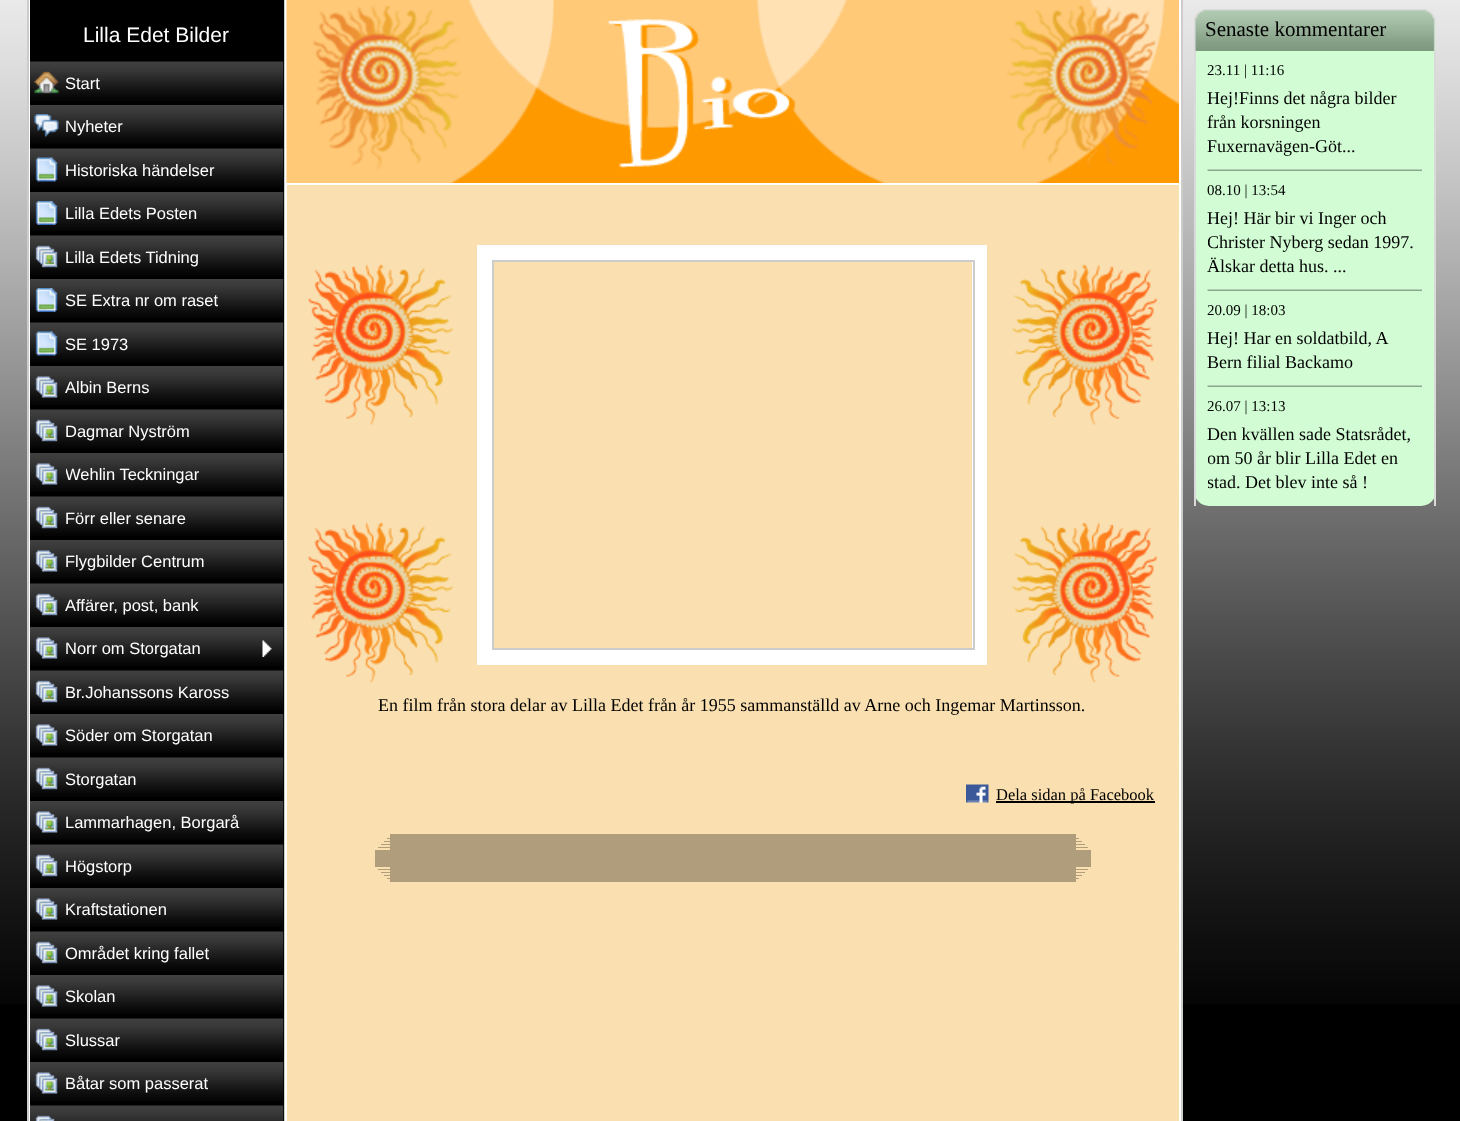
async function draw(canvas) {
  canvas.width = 1460;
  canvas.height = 1121;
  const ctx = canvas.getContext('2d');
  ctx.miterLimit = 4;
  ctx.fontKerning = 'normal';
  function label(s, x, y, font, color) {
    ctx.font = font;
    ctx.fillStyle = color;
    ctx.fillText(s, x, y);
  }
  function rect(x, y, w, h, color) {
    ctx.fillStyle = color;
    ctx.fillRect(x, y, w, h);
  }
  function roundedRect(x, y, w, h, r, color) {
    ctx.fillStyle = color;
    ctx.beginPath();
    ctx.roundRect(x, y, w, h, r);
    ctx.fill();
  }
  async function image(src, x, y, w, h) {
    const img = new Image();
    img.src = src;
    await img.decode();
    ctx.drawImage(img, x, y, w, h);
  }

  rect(0, 0, 1460, 1121, '#000');
  await image('assets/img1.png', 0, 0, 1460, 1004);
  rect(29, 0, 1152, 1121, '#fff');
  rect(27, 0, 2, 1121, '#ccc');
  rect(30, 0, 254, 1121, '#000');
  label('Lilla Edet Bilder', 83, 42, '21px Liberation Sans', '#fff');
  await image('assets/img2.png', 30, 61, 254, 40);
  await image('assets/img3.png', 34, 71, 25, 23);
  label('Start', 65, 89, '16.5px Liberation Sans', '#fff');
  await image('assets/img4.png', 30, 105, 254, 39);
  await image('assets/img5.png', 34, 114, 25, 23);
  label('Nyheter', 65, 132, '16.5px Liberation Sans', '#fff');
  await image('assets/img2.png', 30, 148, 254, 40);
  await image('assets/img6.png', 35, 157, 23, 25);
  label('Historiska händelser', 65, 176, '16.5px Liberation Sans', '#fff');
  await image('assets/img4.png', 30, 192, 254, 39);
  await image('assets/img7.png', 35, 201, 23, 24);
  label('Lilla Edets Posten', 65, 219, '16.5px Liberation Sans', '#fff');
  await image('assets/img2.png', 30, 235, 254, 40);
  await image('assets/img8.png', 35, 245, 23, 23);
  label('Lilla Edets Tidning', 65, 263, '16.5px Liberation Sans', '#fff');
  await image('assets/img4.png', 30, 279, 254, 39);
  await image('assets/img7.png', 35, 288, 23, 24);
  label('SE Extra nr om raset', 65, 306, '16.5px Liberation Sans', '#fff');
  await image('assets/img2.png', 30, 322, 254, 40);
  await image('assets/img6.png', 35, 331, 23, 25);
  label('SE 1973', 65, 350, '16.5px Liberation Sans', '#fff');
  await image('assets/img4.png', 30, 366, 254, 39);
  await image('assets/img9.png', 35, 376, 23, 22);
  label('Albin Berns', 65, 393, '16.5px Liberation Sans', '#fff');
  await image('assets/img2.png', 30, 409, 254, 40);
  await image('assets/img8.png', 35, 419, 23, 23);
  label('Dagmar Nyström', 65, 437, '16.5px Liberation Sans', '#fff');
  await image('assets/img4.png', 30, 453, 254, 39);
  await image('assets/img9.png', 35, 463, 23, 22);
  ctx.save();
  ctx.beginPath();
  ctx.rect(66, 464, 192, 21);
  ctx.clip();
  label('Wehlin Teckningar', 65, 480, '16.5px Liberation Sans', '#fff');
  ctx.restore();
  await image('assets/img2.png', 30, 496, 254, 40);
  await image('assets/img8.png', 35, 506, 23, 23);
  label('Förr eller senare', 65, 524, '16.5px Liberation Sans', '#fff');
  await image('assets/img4.png', 30, 540, 254, 39);
  await image('assets/img9.png', 35, 550, 23, 22);
  label('Flygbilder Centrum', 65, 567, '16.5px Liberation Sans', '#fff');
  await image('assets/img2.png', 30, 583, 254, 40);
  await image('assets/img8.png', 35, 593, 23, 23);
  label('Affärer, post, bank', 65, 611, '16.5px Liberation Sans', '#fff');
  await image('assets/img4.png', 30, 627, 254, 39);
  await image('assets/img9.png', 35, 637, 23, 22);
  await image('assets/img10.png', 262, 640, 10, 17);
  label('Norr om Storgatan', 65, 654, '16.5px Liberation Sans', '#fff');
  await image('assets/img2.png', 30, 670, 254, 40);
  await image('assets/img8.png', 35, 680, 23, 23);
  label('Br.Johanssons Kaross', 65, 698, '16.5px Liberation Sans', '#fff');
  await image('assets/img4.png', 30, 714, 254, 39);
  await image('assets/img9.png', 35, 724, 23, 22);
  label('Söder om Storgatan', 65, 741, '16.5px Liberation Sans', '#fff');
  await image('assets/img2.png', 30, 757, 254, 40);
  await image('assets/img8.png', 35, 767, 23, 23);
  label('Storgatan', 65, 785, '16.5px Liberation Sans', '#fff');
  await image('assets/img4.png', 30, 801, 254, 39);
  await image('assets/img9.png', 35, 811, 23, 22);
  label('Lammarhagen, Borgarå', 65, 828, '16.5px Liberation Sans', '#fff');
  await image('assets/img2.png', 30, 844, 254, 40);
  await image('assets/img8.png', 35, 854, 23, 23);
  label('Högstorp', 65, 872, '16.5px Liberation Sans', '#fff');
  await image('assets/img4.png', 30, 888, 254, 39);
  await image('assets/img9.png', 35, 898, 23, 22);
  label('Kraftstationen', 65, 915, '16.5px Liberation Sans', '#fff');
  await image('assets/img2.png', 30, 931, 254, 40);
  await image('assets/img8.png', 35, 941, 23, 23);
  label('Området kring fallet', 65, 959, '16.5px Liberation Sans', '#fff');
  await image('assets/img4.png', 30, 975, 254, 39);
  await image('assets/img9.png', 35, 985, 23, 22);
  label('Skolan', 65, 1002, '16.5px Liberation Sans', '#fff');
  await image('assets/img2.png', 30, 1018, 254, 40);
  await image('assets/img8.png', 35, 1028, 23, 23);
  label('Slussar', 65, 1046, '16.5px Liberation Sans', '#fff');
  await image('assets/img4.png', 30, 1062, 254, 39);
  await image('assets/img9.png', 35, 1072, 23, 22);
  label('Båtar som passerat', 65, 1089, '16.5px Liberation Sans', '#fff');
  await image('assets/img11.png', 30, 1105, 254, 16);
  await image('assets/img12.png', 35, 1115, 20, 6);
  rect(284, 0, 1, 1121, '#ccc');
  rect(287, 185, 892, 936, '#fae0b0');
  await image('assets/img13.png', 286, 0, 893, 183);
  await image('assets/img14.png', 307, 263, 851, 420);
  ctx.strokeStyle = '#fff';
  ctx.lineWidth = 15;
  ctx.strokeRect(484.5, 252.5, 495, 405);
  ctx.strokeStyle = '#ccc';
  ctx.lineWidth = 2;
  ctx.strokeRect(493, 261, 481, 388);
  label('En film från stora delar av Lilla Edet från år 1955 sammanställd av Arne och Ingemar Martinsson.', 378, 711, '18px Liberation Serif', '#000');
  await image('assets/img15.png', 966, 784, 23, 19);
  rect(996, 801, 159, 2, '#000');
  label('Dela sidan på Facebook', 996, 800, '16.5px Liberation Serif', '#000');
  rect(375, 834, 716, 48, '#af9d7b');
  rect(1076, 834, 15, 4, '#fae0b0');
  rect(375, 834, 15, 4, '#fae0b0');
  rect(1079, 838, 12, 1, '#fae0b0');
  rect(375, 838, 12, 1, '#fae0b0');
  rect(1076, 839, 15, 2, '#fae0b0');
  rect(375, 839, 15, 2, '#fae0b0');
  rect(1082, 841, 9, 1, '#fae0b0');
  rect(375, 841, 9, 1, '#fae0b0');
  rect(1076, 842, 15, 2, '#fae0b0');
  rect(375, 842, 15, 2, '#fae0b0');
  rect(1085, 844, 6, 1, '#fae0b0');
  rect(375, 844, 6, 1, '#fae0b0');
  rect(1076, 845, 15, 2, '#fae0b0');
  rect(375, 845, 15, 2, '#fae0b0');
  rect(1088, 847, 3, 1, '#fae0b0');
  rect(375, 847, 3, 1, '#fae0b0');
  rect(1076, 848, 15, 2, '#fae0b0');
  rect(375, 848, 15, 2, '#fae0b0');
  rect(1076, 867, 15, 2, '#fae0b0');
  rect(375, 867, 15, 2, '#fae0b0');
  rect(1088, 869, 3, 1, '#fae0b0');
  rect(375, 869, 3, 1, '#fae0b0');
  rect(1076, 870, 15, 2, '#fae0b0');
  rect(375, 870, 15, 2, '#fae0b0');
  rect(1085, 872, 6, 1, '#fae0b0');
  rect(375, 872, 6, 1, '#fae0b0');
  rect(1076, 873, 15, 2, '#fae0b0');
  rect(375, 873, 15, 2, '#fae0b0');
  rect(1082, 875, 9, 1, '#fae0b0');
  rect(375, 875, 9, 1, '#fae0b0');
  rect(1076, 876, 15, 2, '#fae0b0');
  rect(375, 876, 15, 2, '#fae0b0');
  rect(1079, 878, 12, 1, '#fae0b0');
  rect(375, 878, 12, 1, '#fae0b0');
  rect(1076, 879, 15, 3, '#fae0b0');
  rect(375, 879, 15, 3, '#fae0b0');
  rect(1181, 0, 2, 1121, '#ccc');
  roundedRect(1194, 9, 242, 497, 15, '#d2fdd4');
  await image('assets/img16.png', 1194, 9, 242, 42);
  label('Senaste kommentarer', 1205, 36, '21px Liberation Serif', '#000');
  rect(1434, 51, 2, 455, '#dadada');
  rect(1194, 51, 2, 455, '#dadada');
  label('23.11 | 11:16', 1207, 75, '15px Liberation Serif', '#000');
  label('Hej!Finns det några bilder', 1207, 104, '18px Liberation Serif', '#000');
  label('från korsningen', 1207, 128, '18px Liberation Serif', '#000');
  label('Fuxernavägen-Göt...', 1207, 152, '18px Liberation Serif', '#000');
  await image('assets/img17.png', 1207, 169, 215, 2);
  label('08.10 | 13:54', 1207, 195, '15px Liberation Serif', '#000');
  label('Hej! Här bir vi Inger och', 1207, 224, '18px Liberation Serif', '#000');
  ctx.save();
  ctx.beginPath();
  ctx.rect(1208, 206, 214, 72);
  ctx.clip();
  label('Christer Nyberg sedan 1997.', 1207, 248, '18px Liberation Serif', '#000');
  ctx.restore();
  label('Älskar detta hus. ...', 1207, 272, '18px Liberation Serif', '#000');
  await image('assets/img17.png', 1207, 289, 215, 2);
  label('20.09 | 18:03', 1207, 315, '15px Liberation Serif', '#000');
  label('Hej! Har en soldatbild, A', 1207, 344, '18px Liberation Serif', '#000');
  label('Bern filial Backamo', 1207, 368, '18px Liberation Serif', '#000');
  await image('assets/img17.png', 1207, 385, 215, 2);
  label('26.07 | 13:13', 1207, 411, '15px Liberation Serif', '#000');
  label('Den kvällen sade Statsrådet,', 1207, 440, '18px Liberation Serif', '#000');
  ctx.save();
  ctx.beginPath();
  ctx.rect(1208, 422, 214, 72);
  ctx.clip();
  label('om 50 år blir Lilla Edet en', 1207, 464, '18px Liberation Serif', '#000');
  label('stad. Det blev inte så !', 1207, 488, '18px Liberation Serif', '#000');
  ctx.restore();
}

draw(document.querySelector('canvas'));
